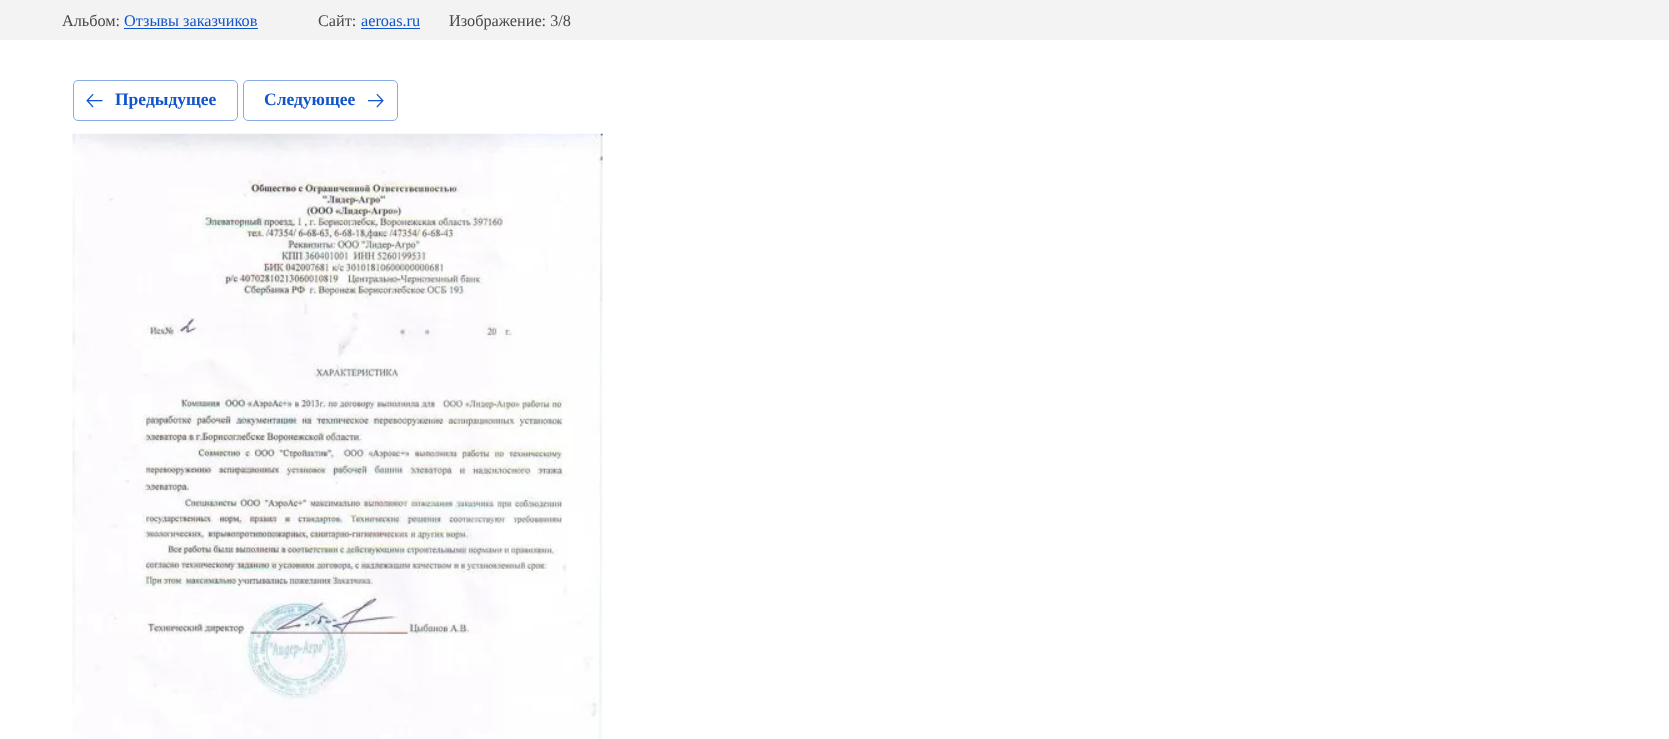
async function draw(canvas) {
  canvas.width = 1669;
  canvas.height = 739;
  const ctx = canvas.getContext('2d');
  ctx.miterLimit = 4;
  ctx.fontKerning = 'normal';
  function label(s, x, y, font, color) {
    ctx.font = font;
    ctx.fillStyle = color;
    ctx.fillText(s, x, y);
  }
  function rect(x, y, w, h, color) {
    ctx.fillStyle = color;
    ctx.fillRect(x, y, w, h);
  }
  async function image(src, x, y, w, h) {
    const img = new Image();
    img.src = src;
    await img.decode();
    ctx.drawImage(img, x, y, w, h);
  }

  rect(0, 0, 1669, 739, '#fff');
  rect(0, 0, 1669, 40, '#f3f3f3');
  label('Альбом:', 62, 26, '16.25px Liberation Serif', '#484848');
  label('Отзывы заказчиков', 124, 26, '16.25px Liberation Serif', '#15c');
  rect(124, 28, 134, 1, '#15c');
  label('Сайт:', 318, 26, '16.25px Liberation Serif', '#484848');
  label('aeroas.ru', 361, 26, '16.25px Liberation Serif', '#15c');
  rect(361, 28, 59, 1, '#15c');
  label('Изображение: 3/8', 449, 26, '16.25px Liberation Serif', '#484848');
  ctx.beginPath();
  ctx.roundRect(73.5, 80.5, 164, 40, 4.5);
  ctx.strokeStyle = '#88aae6';
  ctx.stroke();
  await image('assets/img1.png', 86, 94, 17, 14);
  label('Предыдущее', 115, 105, 'bold 17.5px Liberation Serif', '#15c');
  ctx.beginPath();
  ctx.roundRect(243.5, 80.5, 154, 40, 4.5);
  ctx.stroke();
  label('Следующее', 264, 105, 'bold 17.5px Liberation Serif', '#15c');
  await image('assets/img2.png', 368, 94, 16, 14);
  await image('assets/img3.png', 72, 133, 531, 606);
}

draw(document.querySelector('canvas'));
